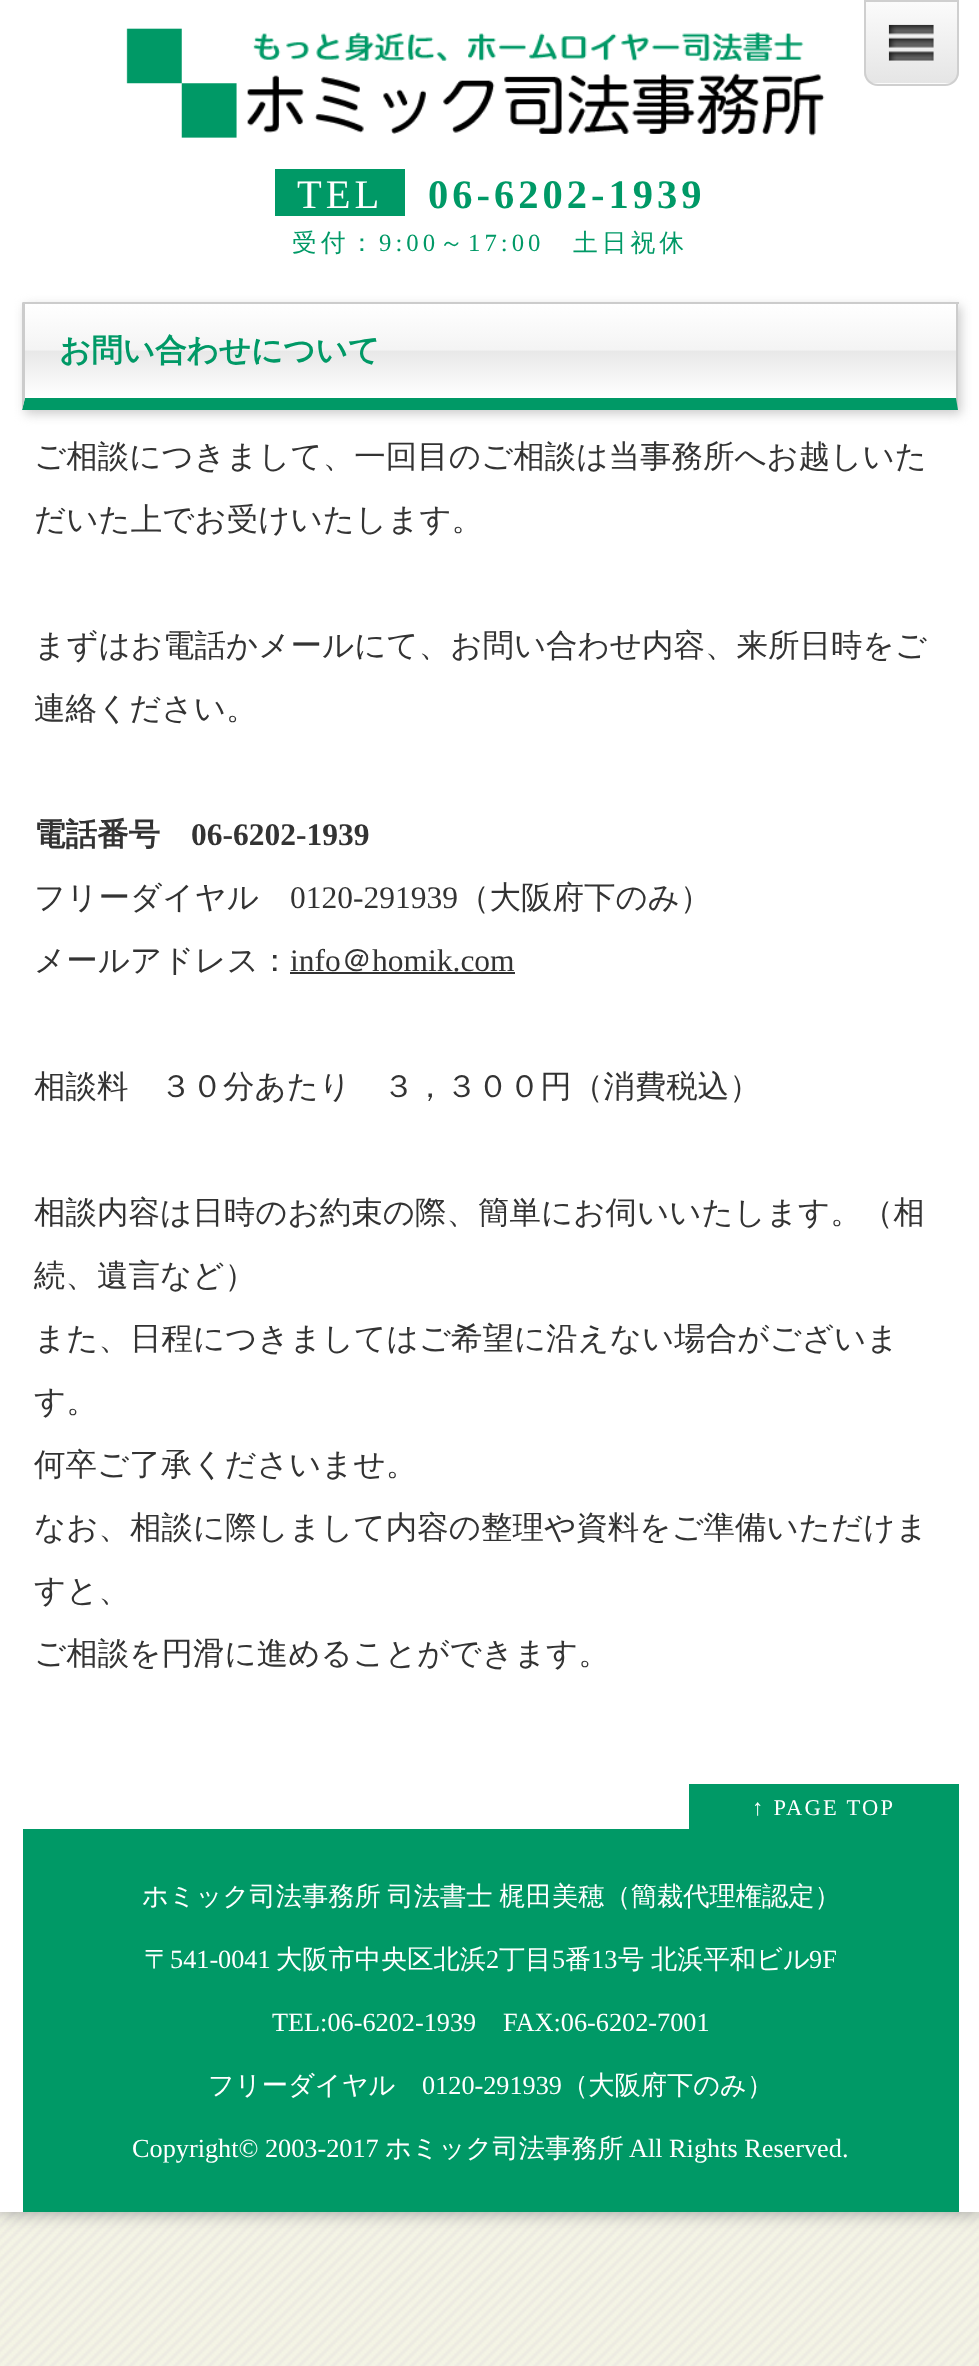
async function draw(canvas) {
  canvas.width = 979;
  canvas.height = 2366;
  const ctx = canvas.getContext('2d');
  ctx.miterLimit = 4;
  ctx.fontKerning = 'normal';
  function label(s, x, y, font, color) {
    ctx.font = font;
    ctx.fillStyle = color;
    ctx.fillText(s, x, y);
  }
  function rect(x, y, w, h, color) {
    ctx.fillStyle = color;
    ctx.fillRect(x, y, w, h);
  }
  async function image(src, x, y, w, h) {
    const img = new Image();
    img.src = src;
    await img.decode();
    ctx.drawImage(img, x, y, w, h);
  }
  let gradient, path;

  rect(0, 0, 979, 2366, '#fff');
  await image('assets/img1.png', 0, 2212, 979, 154);
  ctx.fillStyle = '#999';
  ctx.filter = 'blur(9px)';
  ctx.beginPath();
  ctx.rect(0, 0, 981, 2212);
  ctx.fill();
  ctx.filter = 'none';
  rect(0, 0, 979, 2212, '#fff');
  ctx.save();
  ctx.beginPath();
  ctx.roundRect(864, 0, 95, 86, [0, 0, 14, 14]);
  ctx.clip();
  gradient = ctx.createLinearGradient(911, 2.2, 911, 83);
  gradient.addColorStop(0, '#fbfbfb');
  gradient.addColorStop(1, '#e5e5e5');
  ctx.fillStyle = gradient;
  ctx.fillRect(864, 2, 95, 81);
  gradient = ctx.createLinearGradient(911, 83, 911, 164);
  gradient.addColorStop(0, '#fbfbfb');
  gradient.addColorStop(1, '#e5e5e5');
  ctx.fillStyle = gradient;
  ctx.fillRect(864, 83, 95, 3);
  ctx.restore();
  ctx.beginPath();
  ctx.roundRect(865, 1, 93, 84, [0, 0, 13, 13]);
  ctx.strokeStyle = '#cfcfcf';
  ctx.lineWidth = 2;
  ctx.stroke();
  await image('assets/img2.png', 888, 24, 46, 37);
  await image('assets/img3.png', 126, 28, 699, 110);
  rect(275, 169, 130, 47, '#096');
  ctx.letterSpacing = '4px';
  label('TEL', 297, 208, '40.5px Liberation Serif', '#fff');
  label('06-6202-1939', 428, 208, 'bold 40.5px Liberation Serif', '#096');
  label('受付：', 292, 251, '500 24.75px WenQuanYi Zen Hei', '#096');
  label('9:00', 379, 251, '24.75px Liberation Serif', '#096');
  label('～', 439, 251, '500 24.75px WenQuanYi Zen Hei', '#096');
  label('17:00', 468, 251, '24.75px Liberation Serif', '#096');
  label('土日祝休', 573, 251, '500 24.75px WenQuanYi Zen Hei', '#096');
  ctx.fillStyle = '#ccc';
  ctx.filter = 'blur(5.5px)';
  ctx.beginPath();
  ctx.rect(25, 306, 936, 108);
  ctx.fill();
  ctx.filter = 'none';
  gradient = ctx.createLinearGradient(491, 304, 491, 398);
  gradient.addColorStop(0, '#fff');
  gradient.addColorStop(0.49, '#f4f4f4');
  gradient.addColorStop(0.5, '#e8e8e8');
  gradient.addColorStop(1, '#fff');
  ctx.fillStyle = gradient;
  ctx.fillRect(25, 304, 931, 94);
  rect(23, 302, 936, 2, '#ccc');
  path = new Path2D('M958 302V410L956 398V304Z');
  ctx.fill(path);
  ctx.fillStyle = '#096';
  path = new Path2D('M958 410H22L25 398H956Z');
  ctx.fill(path);
  ctx.fillStyle = '#ccc';
  path = new Path2D('M22 410V302L25 304V398Z');
  ctx.fill(path);
  ctx.letterSpacing = '0px';
  label('お問い合わせについて', 59, 361, 'bold 31.5px WenQuanYi Zen Hei', '#096');
  label('ご相談につきまして、一回目のご相談は当事務所へお越しいた', 34, 467, '500 31.5px WenQuanYi Zen Hei', '#333');
  label('だいた上でお受けいたします。', 34, 530, '500 31.5px WenQuanYi Zen Hei', '#333');
  label('まずはお電話かメールにて、お問い合わせ内容、来所日時をご', 34, 656, '500 31.5px WenQuanYi Zen Hei', '#333');
  label('連絡ください。', 34, 719, '500 31.5px WenQuanYi Zen Hei', '#333');
  label('電話番号', 34, 845, 'bold 31.5px WenQuanYi Zen Hei', '#333');
  label('06-6202-1939', 191, 845, 'bold 31.5px Liberation Serif', '#333');
  label('フリーダイヤル', 34, 908, '500 31.5px WenQuanYi Zen Hei', '#333');
  label('0120-291939', 290, 908, '31.5px Liberation Serif', '#333');
  label('（大阪府下のみ）', 458, 908, '500 31.5px WenQuanYi Zen Hei', '#333');
  label('メールアドレス：', 34, 971, '500 31.5px WenQuanYi Zen Hei', '#333');
  label('info', 290, 971, '31.5px Liberation Serif', '#333');
  label('＠', 341, 971, '500 31.5px WenQuanYi Zen Hei', '#333');
  rect(290, 972, 225, 2, '#333');
  label('homik.com', 372, 971, '31.5px Liberation Serif', '#333');
  label('相談料　３０分あたり　３，３００円（消費税込）', 34, 1097, '500 31.5px WenQuanYi Zen Hei', '#333');
  label('相談内容は日時のお約束の際、簡単にお伺いいたします。（相', 34, 1223, '500 31.5px WenQuanYi Zen Hei', '#333');
  label('続、遺言など）', 34, 1286, '500 31.5px WenQuanYi Zen Hei', '#333');
  label('また、日程につきましてはご希望に沿えない場合がございま', 34, 1349, '500 31.5px WenQuanYi Zen Hei', '#333');
  label('す。', 34, 1412, '500 31.5px WenQuanYi Zen Hei', '#333');
  label('何卒ご了承くださいませ。', 34, 1475, '500 31.5px WenQuanYi Zen Hei', '#333');
  label('なお、相談に際しまして内容の整理や資料をご準備いただけま', 34, 1538, '500 31.5px WenQuanYi Zen Hei', '#333');
  label('すと、', 34, 1601, '500 31.5px WenQuanYi Zen Hei', '#333');
  label('ご相談を円滑に進めることができます。', 34, 1664, '500 31.5px WenQuanYi Zen Hei', '#333');
  rect(689, 1784, 270, 45, '#096');
  ctx.letterSpacing = '2.25px';
  label('↑ PAGE TOP', 752, 1815, '22.5px Liberation Serif', '#fff');
  rect(23, 1829, 936, 383, '#096');
  ctx.letterSpacing = '0px';
  ctx.wordSpacing = '-1px';
  label('ホミック司法事務所 司法書士 梶田美穂（簡裁代理権認定）', 142, 1905, '500 26.25px WenQuanYi Zen Hei', '#fff');
  ctx.wordSpacing = '0px';
  label('〒', 144, 1968, '500 26.25px WenQuanYi Zen Hei', '#fff');
  label('541-0041', 170, 1968, '26.25px Liberation Serif', '#fff');
  label('大阪市中央区北浜', 276, 1968, '500 26.25px WenQuanYi Zen Hei', '#fff');
  label('2', 486, 1968, '26.25px Liberation Serif', '#fff');
  label('丁目', 499, 1968, '500 26.25px WenQuanYi Zen Hei', '#fff');
  label('5', 552, 1968, '26.25px Liberation Serif', '#fff');
  label('番', 565, 1968, '500 26.25px WenQuanYi Zen Hei', '#fff');
  label('13', 591, 1968, '26.25px Liberation Serif', '#fff');
  ctx.wordSpacing = '-1px';
  label('号 北浜平和ビル', 618, 1968, '500 26.25px WenQuanYi Zen Hei', '#fff');
  ctx.wordSpacing = '0px';
  label('9F', 809, 1968, '26.25px Liberation Serif', '#fff');
  label('TEL:06-6202-1939', 272, 2031, '26.25px Liberation Serif', '#fff');
  label('FAX:06-6202-7001', 503, 2031, '26.25px Liberation Serif', '#fff');
  label('フリーダイヤル', 208, 2094, '500 26.25px WenQuanYi Zen Hei', '#fff');
  label('0120-291939', 422, 2094, '26.25px Liberation Serif', '#fff');
  label('（大阪府下のみ）', 562, 2094, '500 26.25px WenQuanYi Zen Hei', '#fff');
  label('Copyright© 2003-2017', 132, 2157, '26.25px Liberation Serif', '#fff');
  label('ホミック司法事務所', 385, 2157, '500 26.25px WenQuanYi Zen Hei', '#fff');
  label('All Rights Reserved.', 629, 2157, '26.25px Liberation Serif', '#fff');
}

draw(document.querySelector('canvas'));
